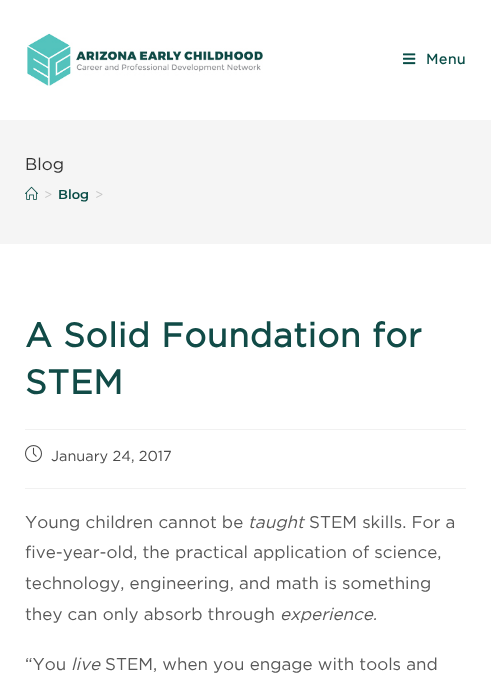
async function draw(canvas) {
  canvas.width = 491;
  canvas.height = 678;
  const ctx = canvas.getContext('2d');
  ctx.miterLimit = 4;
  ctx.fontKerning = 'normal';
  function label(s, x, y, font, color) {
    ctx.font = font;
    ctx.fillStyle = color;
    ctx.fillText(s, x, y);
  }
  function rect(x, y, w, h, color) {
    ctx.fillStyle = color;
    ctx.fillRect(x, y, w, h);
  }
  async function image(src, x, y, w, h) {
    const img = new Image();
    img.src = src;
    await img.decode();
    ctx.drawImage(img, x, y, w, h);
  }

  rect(0, 0, 491, 678, '#fff');
  await image('assets/img1.png', 27, 33, 236, 53);
  await image('assets/img2.png', 403, 53, 13, 12);
  ctx.letterSpacing = '0.6px';
  label('Menu', 426, 64, 'bold 14px Gotham', '#084c46');
  rect(0, 120, 491, 124, '#f5f5f5');
  ctx.letterSpacing = '0px';
  label('Blog', 25, 170, '17px Gotham', '#333');
  await image('assets/img3.png', 25, 186, 13, 14);
  label('>', 44, 199, '13px Gotham', '#c6c6c6');
  label('Blog', 58, 199, '600 13px Montserrat', '#084c46');
  label('>', 95, 199, '13px Gotham', '#c6c6c6');
  rect(25, 429, 441, 1, '#f1f1f1');
  ctx.letterSpacing = '0.6px';
  label('A Solid Foundation for', 25, 347, 'bold 34px Gotham', '#114b47');
  label('STEM', 25, 394, 'bold 34px Gotham', '#114b47');
  rect(25, 488, 441, 1, '#f1f1f1');
  await image('assets/img4.png', 25, 445, 17, 18);
  ctx.letterSpacing = '0px';
  label('January 24, 2017', 51, 461, '14.5px Gotham', '#4a4a4a');
  label('Young children cannot be', 25, 528, '17px Gotham', '#595959');
  label('taught', 248, 528, 'italic 17px Gotham', '#595959');
  label('STEM skills. For a', 309, 528, '17px Gotham', '#595959');
  label('five-year-old, the practical application of science,', 25, 558, '17px Gotham', '#595959');
  label('technology, engineering, and math is something', 25, 589, '17px Gotham', '#595959');
  label('they can only absorb through', 25, 620, '17px Gotham', '#595959');
  label('experience.', 280, 620, 'italic 17px Gotham', '#595959');
  label('“You', 25, 670, '17px Gotham', '#595959');
  label('live', 71, 670, 'italic 17px Gotham', '#595959');
  label('STEM, when you engage with tools and', 105, 670, '17px Gotham', '#595959');
}

draw(document.querySelector('canvas'));
